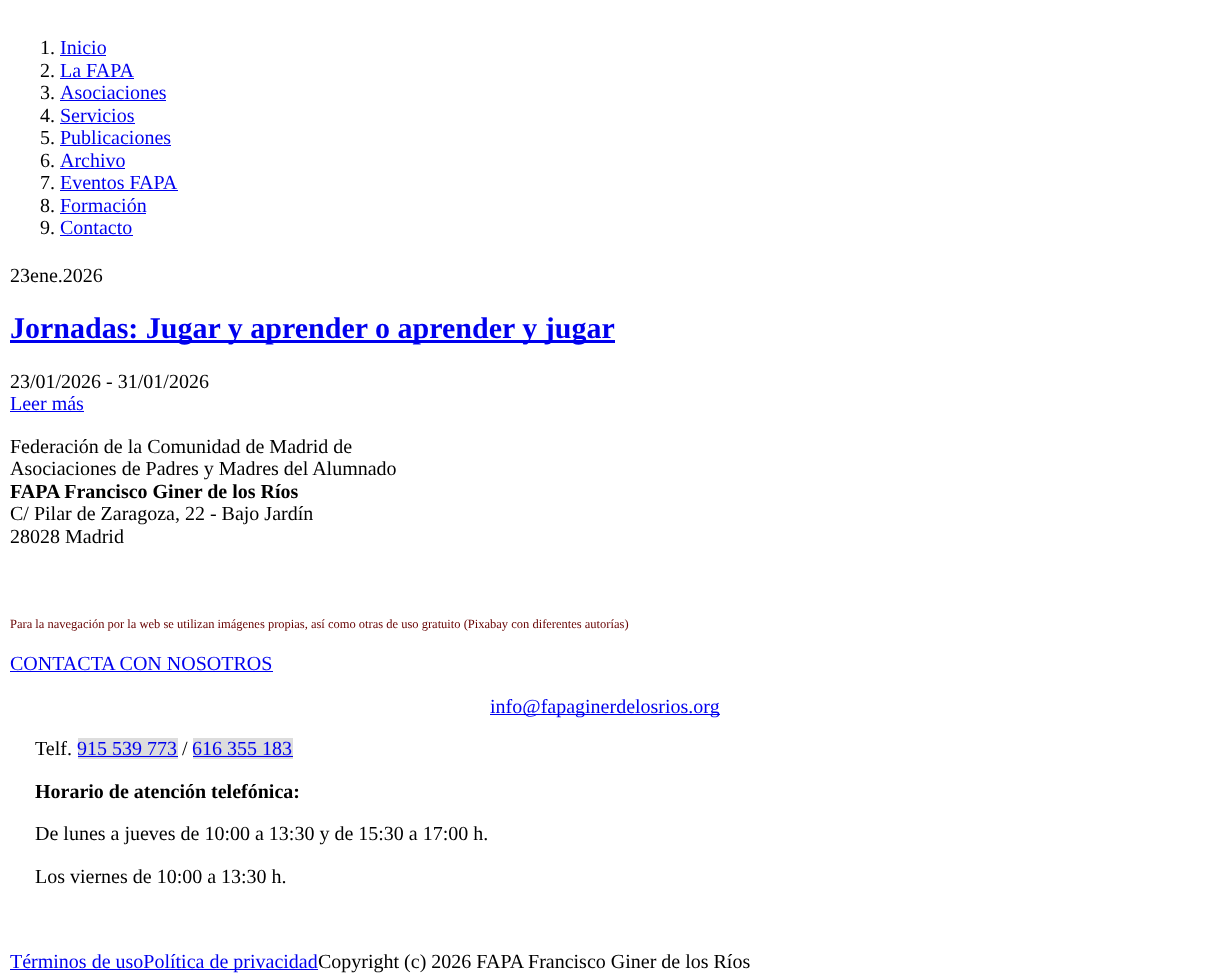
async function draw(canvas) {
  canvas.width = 1209;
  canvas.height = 976;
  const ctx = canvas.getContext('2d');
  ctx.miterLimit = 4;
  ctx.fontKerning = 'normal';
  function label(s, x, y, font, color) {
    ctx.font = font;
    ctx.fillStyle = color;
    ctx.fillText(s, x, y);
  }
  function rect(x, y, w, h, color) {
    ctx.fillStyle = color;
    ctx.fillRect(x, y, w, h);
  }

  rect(0, 0, 1209, 976, '#fff');
  label('1.', 40, 54, '20px Liberation Serif', '#000');
  label('Inicio', 60, 54, '20px Liberation Serif', '#00e');
  rect(60, 55, 46, 1, '#00e');
  label('2.', 40, 77, '20px Liberation Serif', '#000');
  label('La FAPA', 60, 77, '20px Liberation Serif', '#00e');
  rect(60, 78, 74, 1, '#00e');
  label('3.', 40, 99, '20px Liberation Serif', '#000');
  label('Asociaciones', 60, 99, '20px Liberation Serif', '#00e');
  rect(60, 100, 106, 1, '#00e');
  label('4.', 40, 122, '20px Liberation Serif', '#000');
  label('Servicios', 60, 122, '20px Liberation Serif', '#00e');
  rect(60, 123, 75, 1, '#00e');
  label('5.', 40, 144, '20px Liberation Serif', '#000');
  label('Publicaciones', 60, 144, '20px Liberation Serif', '#00e');
  rect(60, 145, 111, 1, '#00e');
  label('6.', 40, 167, '20px Liberation Serif', '#000');
  label('Archivo', 60, 167, '20px Liberation Serif', '#00e');
  rect(60, 168, 65, 1, '#00e');
  label('7.', 40, 189, '20px Liberation Serif', '#000');
  label('Eventos FAPA', 60, 189, '20px Liberation Serif', '#00e');
  rect(60, 190, 118, 1, '#00e');
  label('8.', 40, 212, '20px Liberation Serif', '#000');
  label('Formación', 60, 212, '20px Liberation Serif', '#00e');
  rect(60, 213, 86, 1, '#00e');
  label('9.', 40, 234, '20px Liberation Serif', '#000');
  label('Contacto', 60, 234, '20px Liberation Serif', '#00e');
  rect(60, 235, 73, 1, '#00e');
  label('23ene.2026', 10, 282, '20px Liberation Serif', '#000');
  rect(10, 340, 605, 3, '#00e');
  label('Jornadas: Jugar y aprender o aprender y jugar', 10, 338, 'bold 30px Liberation Serif', '#00e');
  label('23/01/2026 - 31/01/2026', 10, 388, '20px Liberation Serif', '#000');
  label('Leer más', 10, 410, '20px Liberation Serif', '#00e');
  rect(10, 411, 74, 1, '#00e');
  label('Federación de la Comunidad de Madrid de', 10, 453, '20px Liberation Serif', '#000');
  label('Asociaciones de Padres y Madres del Alumnado', 10, 475, '20px Liberation Serif', '#000');
  label('FAPA Francisco Giner de los Ríos', 10, 498, 'bold 20px Liberation Serif', '#000');
  label('C/ Pilar de Zaragoza, 22 - Bajo Jardín', 10, 520, '20px Liberation Serif', '#000');
  label('28028 Madrid', 10, 543, '20px Liberation Serif', '#000');
  label('Para la navegación por la web se utilizan imágenes propias, así como otras de uso gratuito (Pixabay con diferentes autorías)', 10, 628, '12.5px Liberation Serif', '#600');
  label('CONTACTA CON NOSOTROS', 10, 670, '20px Liberation Serif', '#00e');
  rect(10, 671, 263, 1, '#00e');
  rect(490, 714, 230, 1, '#00e');
  label('info@fapaginerdelosrios.org', 490, 713, '20px Liberation Serif', '#00e');
  label('Telf.', 35, 755, '20px Liberation Serif', '#000');
  rect(78, 738, 100, 21, '#ddd');
  label('915 539 773', 77, 755, '20px Liberation Serif', '#00e');
  rect(78, 756, 100, 1, '#00e');
  label('/', 182, 755, '20px Liberation Serif', '#000');
  rect(193, 738, 100, 21, '#ddd');
  label('616 355 183', 192, 755, '20px Liberation Serif', '#00e');
  rect(193, 756, 100, 1, '#00e');
  label('Horario de atención telefónica:', 35, 798, 'bold 20px Liberation Serif', '#000');
  label('De lunes a jueves de 10:00 a 13:30 y de 15:30 a 17:00 h.', 35, 840, '20px Liberation Serif', '#000');
  label('Los viernes de 10:00 a 13:30 h.', 35, 883, '20px Liberation Serif', '#000');
  rect(10, 969, 308, 1, '#00e');
  label('Términos de usoPolítica de privacidad', 10, 968, '20px Liberation Serif', '#00e');
  label('Copyright (c) 2026 FAPA Francisco Giner de los Ríos', 318, 968, '20px Liberation Serif', '#000');
}

draw(document.querySelector('canvas'));
